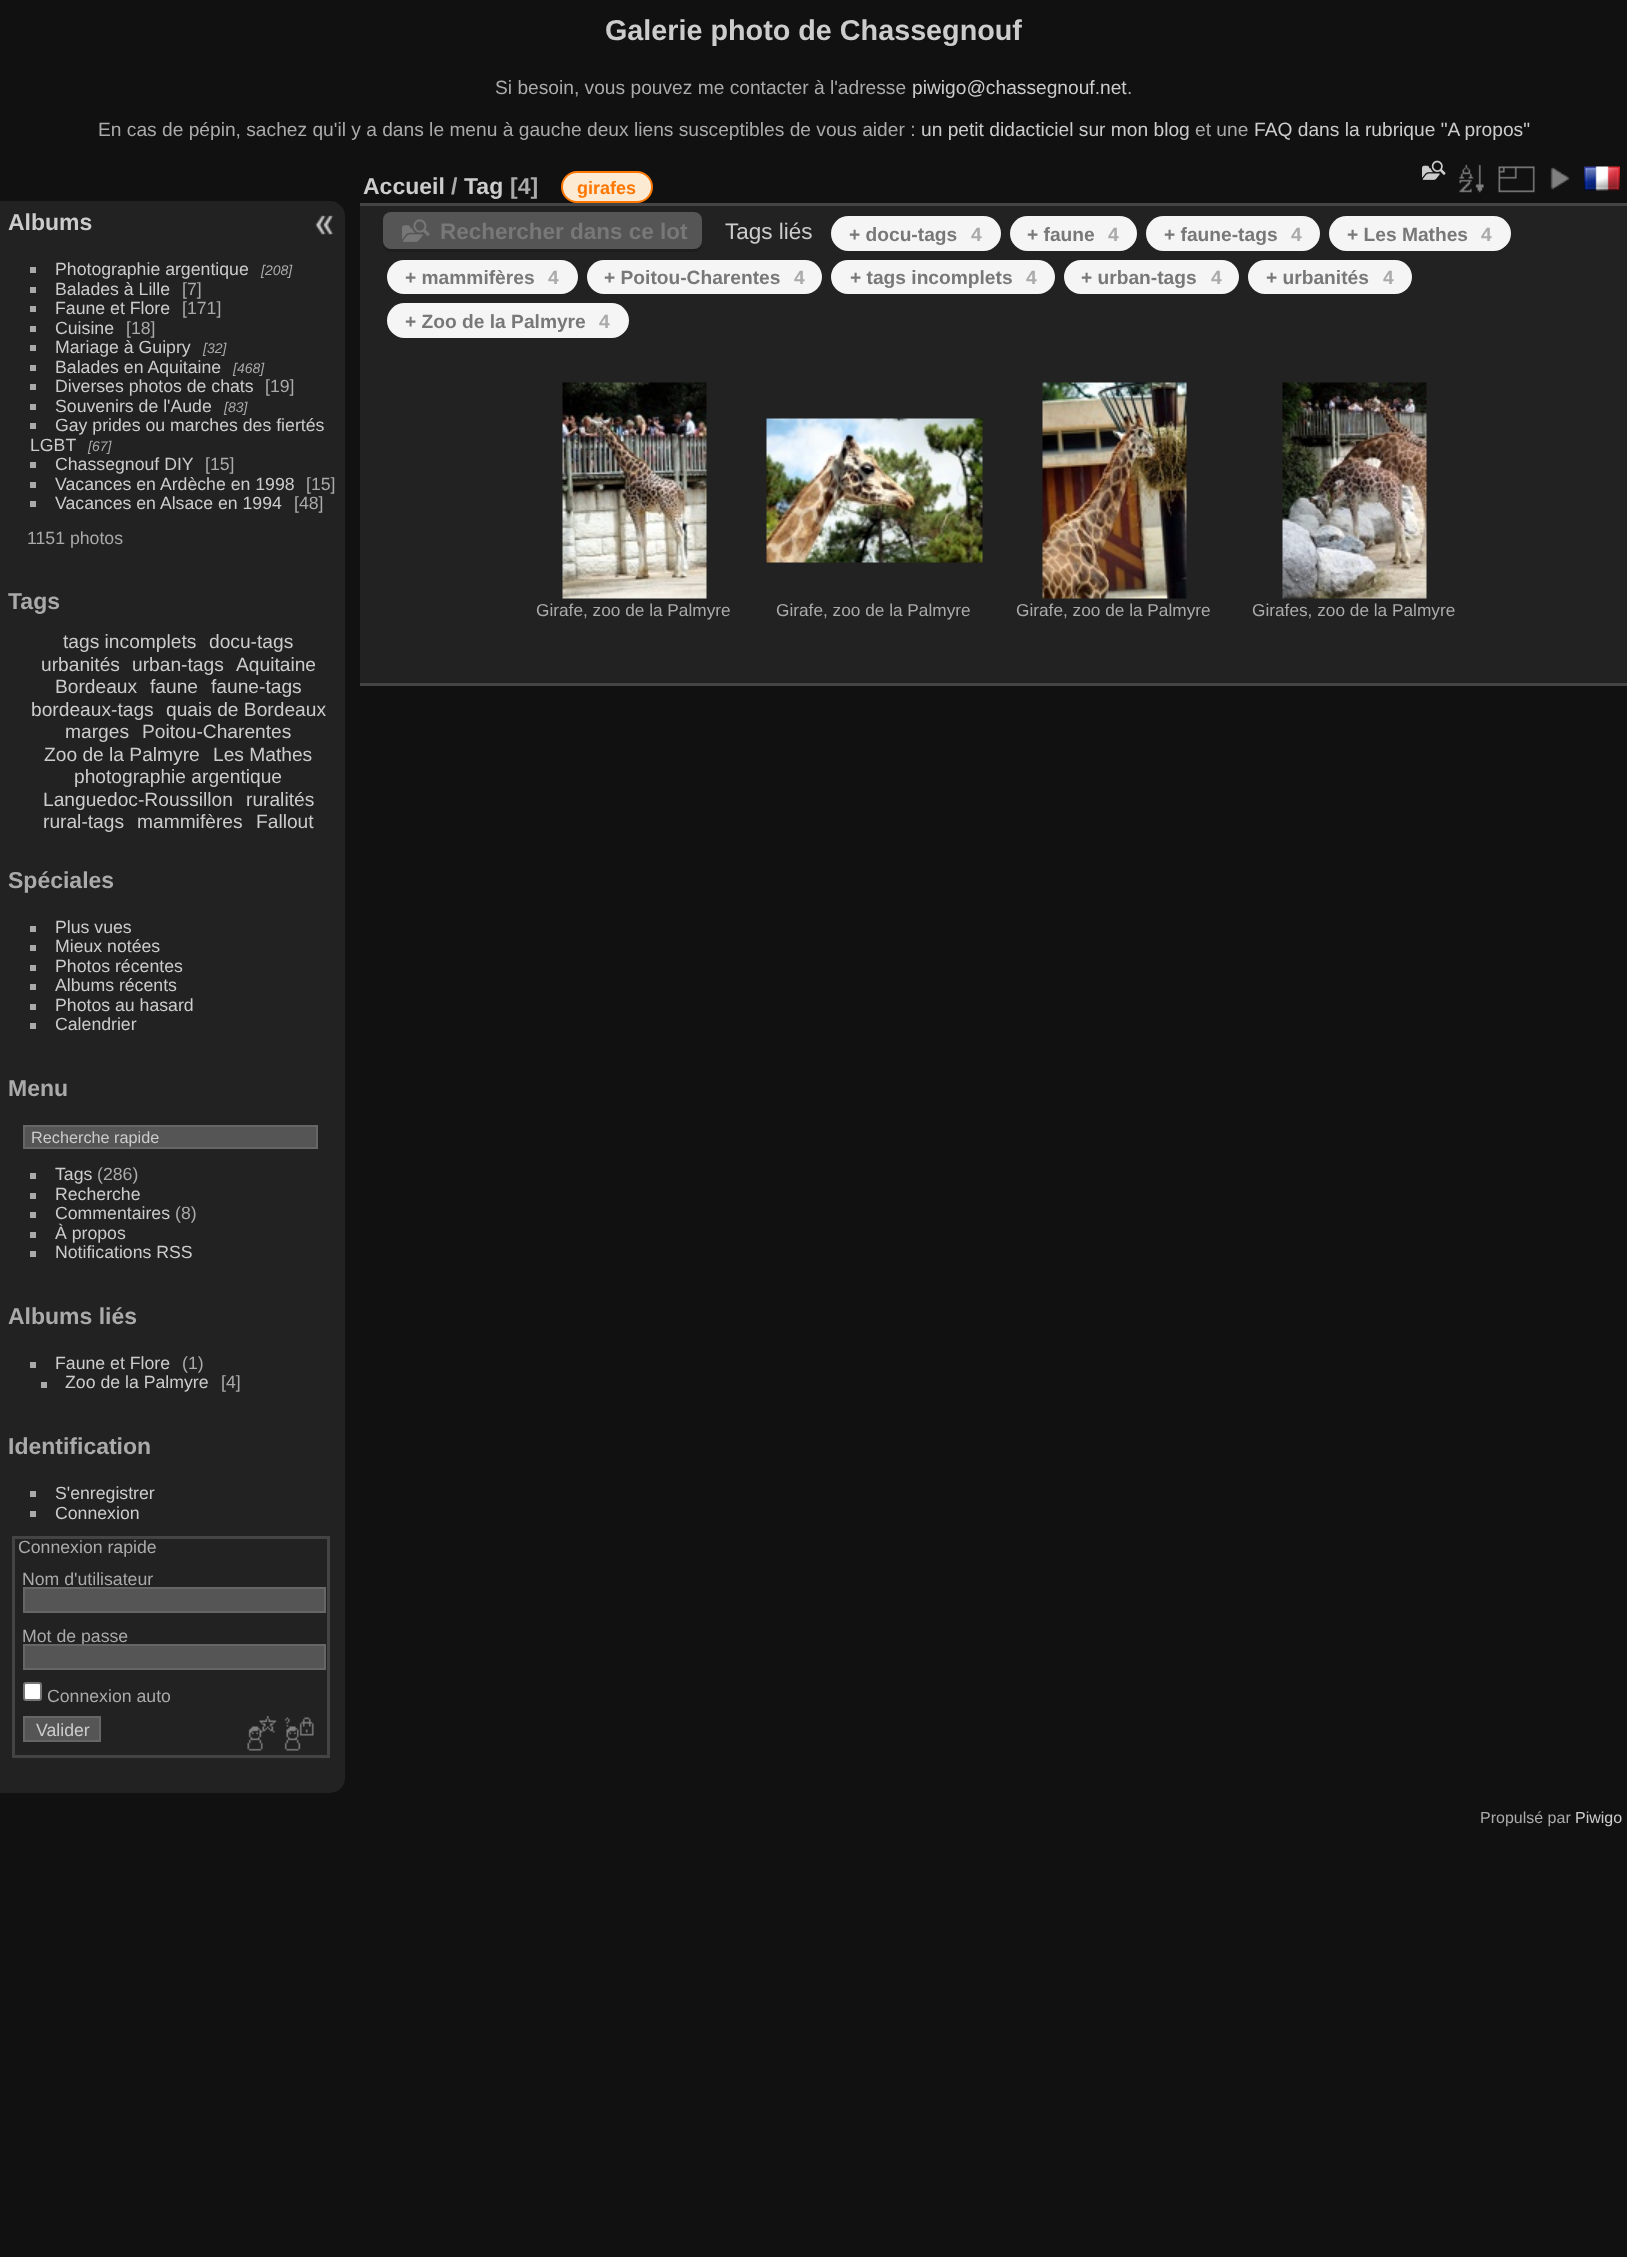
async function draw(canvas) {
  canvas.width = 1627;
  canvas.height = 2257;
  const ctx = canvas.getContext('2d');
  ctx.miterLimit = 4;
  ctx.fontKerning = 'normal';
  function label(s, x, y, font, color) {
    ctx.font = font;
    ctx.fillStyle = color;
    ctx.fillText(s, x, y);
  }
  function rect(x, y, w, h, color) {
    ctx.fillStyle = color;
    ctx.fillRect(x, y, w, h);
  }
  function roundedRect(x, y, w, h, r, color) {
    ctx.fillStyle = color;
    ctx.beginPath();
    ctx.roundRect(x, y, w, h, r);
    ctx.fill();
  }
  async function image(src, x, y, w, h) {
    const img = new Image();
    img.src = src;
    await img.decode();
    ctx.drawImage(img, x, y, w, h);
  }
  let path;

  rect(0, 0, 1627, 2257, '#111');
  label('Galerie photo de Chassegnouf', 605, 40, 'bold 28.75px Liberation Sans', '#ccc');
  label('Si besoin, vous pouvez me contacter à l\'adresse', 495, 94, '19.2px Liberation Sans', '#aaa');
  label('piwigo@chassegnouf.net', 912, 94, '19.2px Liberation Sans', '#ccc');
  label('.', 1127, 94, '19.2px Liberation Sans', '#aaa');
  label('En cas de pépin, sachez qu\'il y a dans le menu à gauche deux liens susceptibles de vous aider :', 98, 136, '19.2px Liberation Sans', '#aaa');
  label('un petit didacticiel sur mon blog', 921, 136, '19.2px Liberation Sans', '#ccc');
  label('et une', 1195, 136, '19.2px Liberation Sans', '#aaa');
  label('FAQ dans la rubrique "A propos"', 1254, 136, '19.2px Liberation Sans', '#ccc');
  ctx.fillStyle = '#222';
  ctx.beginPath();
  ctx.roundRect(0, 201, 345, 1592, [0, 15, 15, 0]);
  ctx.fill();
  label('Albums', 8, 230, 'bold 23px Liberation Sans', '#ccc');
  rect(30, 267, 6, 6, '#aaa');
  label('Photographie argentique', 55, 275, '17.7px Liberation Sans', '#ccc');
  label('[208]', 261, 275, 'italic 14px Liberation Sans', '#aaa');
  rect(30, 287, 6, 6, '#aaa');
  label('Balades à Lille', 55, 295, '17.7px Liberation Sans', '#ccc');
  label('[7]', 182, 295, '17.7px Liberation Sans', '#aaa');
  rect(30, 306, 6, 6, '#aaa');
  label('Faune et Flore', 55, 314, '17.7px Liberation Sans', '#ccc');
  label('[171]', 182, 314, '17.7px Liberation Sans', '#aaa');
  rect(30, 326, 6, 6, '#aaa');
  label('Cuisine', 55, 334, '17.7px Liberation Sans', '#ccc');
  label('[18]', 126, 334, '17.7px Liberation Sans', '#aaa');
  rect(30, 345, 6, 6, '#aaa');
  label('Mariage à Guipry', 55, 353, '17.7px Liberation Sans', '#ccc');
  label('[32]', 203, 353, 'italic 14px Liberation Sans', '#aaa');
  rect(30, 365, 6, 6, '#aaa');
  label('Balades en Aquitaine', 55, 373, '17.7px Liberation Sans', '#ccc');
  label('[468]', 233, 373, 'italic 14px Liberation Sans', '#aaa');
  rect(30, 384, 6, 6, '#aaa');
  label('Diverses photos de chats', 55, 392, '17.7px Liberation Sans', '#ccc');
  label('[19]', 265, 392, '17.7px Liberation Sans', '#aaa');
  rect(30, 404, 6, 6, '#aaa');
  label('Souvenirs de l\'Aude', 55, 412, '17.7px Liberation Sans', '#ccc');
  label('[83]', 224, 412, 'italic 14px Liberation Sans', '#aaa');
  rect(30, 423, 6, 6, '#aaa');
  label('Gay prides ou marches des fiertés', 55, 431, '17.7px Liberation Sans', '#ccc');
  label('LGBT', 30, 451, '17.7px Liberation Sans', '#ccc');
  label('[67]', 88, 451, 'italic 14px Liberation Sans', '#aaa');
  rect(30, 462, 6, 6, '#aaa');
  label('Chassegnouf DIY', 55, 470, '17.7px Liberation Sans', '#ccc');
  label('[15]', 205, 470, '17.7px Liberation Sans', '#aaa');
  rect(30, 482, 6, 6, '#aaa');
  label('Vacances en Ardèche en 1998', 55, 490, '17.7px Liberation Sans', '#ccc');
  label('[15]', 306, 490, '17.7px Liberation Sans', '#aaa');
  rect(30, 501, 6, 6, '#aaa');
  label('Vacances en Alsace en 1994', 55, 509, '17.7px Liberation Sans', '#ccc');
  label('[48]', 294, 509, '17.7px Liberation Sans', '#aaa');
  label('1151 photos', 27, 544, '17.7px Liberation Sans', '#aaa');
  label('Tags', 8, 609, 'bold 23px Liberation Sans', '#aaa');
  label('tags incomplets', 63, 648, '19.2px Liberation Sans', '#ccc');
  label('docu-tags', 209, 648, '19.2px Liberation Sans', '#ccc');
  label('urbanités', 41, 671, '19.2px Liberation Sans', '#ccc');
  label('urban-tags', 132, 671, '19.2px Liberation Sans', '#ccc');
  label('Aquitaine', 236, 671, '19.2px Liberation Sans', '#ccc');
  label('Bordeaux', 55, 693, '19.2px Liberation Sans', '#ccc');
  label('faune', 150, 693, '19.2px Liberation Sans', '#ccc');
  label('faune-tags', 211, 693, '19.2px Liberation Sans', '#ccc');
  label('bordeaux-tags', 31, 716, '19.2px Liberation Sans', '#ccc');
  label('quais de Bordeaux', 166, 716, '19.2px Liberation Sans', '#ccc');
  label('marges', 65, 738, '19.2px Liberation Sans', '#ccc');
  label('Poitou-Charentes', 142, 738, '19.2px Liberation Sans', '#ccc');
  label('Zoo de la Palmyre', 44, 761, '19.2px Liberation Sans', '#ccc');
  label('Les Mathes', 213, 761, '19.2px Liberation Sans', '#ccc');
  label('photographie argentique', 74, 783, '19.2px Liberation Sans', '#ccc');
  label('Languedoc-Roussillon', 43, 806, '19.2px Liberation Sans', '#ccc');
  label('ruralités', 246, 806, '19.2px Liberation Sans', '#ccc');
  label('rural-tags', 43, 828, '19.2px Liberation Sans', '#ccc');
  label('mammifères', 137, 828, '19.2px Liberation Sans', '#ccc');
  label('Fallout', 256, 828, '19.2px Liberation Sans', '#ccc');
  label('Spéciales', 8, 888, 'bold 23px Liberation Sans', '#aaa');
  rect(30, 926, 6, 6, '#aaa');
  label('Plus vues', 55, 933, '17.7px Liberation Sans', '#ccc');
  rect(30, 945, 6, 6, '#aaa');
  label('Mieux notées', 55, 952, '17.7px Liberation Sans', '#ccc');
  rect(30, 965, 6, 6, '#aaa');
  label('Photos récentes', 55, 972, '17.7px Liberation Sans', '#ccc');
  rect(30, 984, 6, 6, '#aaa');
  label('Albums récents', 55, 991, '17.7px Liberation Sans', '#ccc');
  rect(30, 1004, 6, 6, '#aaa');
  label('Photos au hasard', 55, 1011, '17.7px Liberation Sans', '#ccc');
  rect(30, 1023, 6, 6, '#aaa');
  label('Calendrier', 55, 1030, '17.7px Liberation Sans', '#ccc');
  label('Menu', 8, 1096, 'bold 23px Liberation Sans', '#aaa');
  ctx.fillStyle = '#555';
  ctx.beginPath();
  ctx.rect(24, 1126, 293, 22);
  ctx.fill();
  ctx.strokeStyle = '#666';
  ctx.lineWidth = 2;
  ctx.stroke();
  label('Recherche rapide', 31, 1143, '16.25px Liberation Sans', '#ccc');
  rect(30, 1173, 6, 6, '#aaa');
  label('Tags', 55, 1180, '17.7px Liberation Sans', '#ccc');
  label('(286)', 97, 1180, '17.7px Liberation Sans', '#aaa');
  rect(30, 1193, 6, 6, '#aaa');
  label('Recherche', 55, 1200, '17.7px Liberation Sans', '#ccc');
  rect(30, 1212, 6, 6, '#aaa');
  label('Commentaires', 55, 1219, '17.7px Liberation Sans', '#ccc');
  label('(8)', 175, 1219, '17.7px Liberation Sans', '#aaa');
  rect(30, 1232, 6, 6, '#aaa');
  label('À propos', 55, 1239, '17.7px Liberation Sans', '#ccc');
  rect(30, 1251, 6, 6, '#aaa');
  label('Notifications RSS', 55, 1258, '17.7px Liberation Sans', '#ccc');
  label('Albums liés', 8, 1324, 'bold 23px Liberation Sans', '#aaa');
  rect(30, 1362, 6, 6, '#aaa');
  label('Faune et Flore', 55, 1369, '17.7px Liberation Sans', '#ccc');
  label('(1)', 182, 1369, '17.7px Liberation Sans', '#aaa');
  rect(41, 1382, 6, 6, '#aaa');
  label('Zoo de la Palmyre', 65, 1388, '17.7px Liberation Sans', '#ccc');
  label('[4]', 221, 1388, '17.7px Liberation Sans', '#aaa');
  label('Identification', 8, 1454, 'bold 23px Liberation Sans', '#aaa');
  rect(30, 1491, 6, 6, '#aaa');
  label('S\'enregistrer', 55, 1499, '17.7px Liberation Sans', '#ccc');
  rect(30, 1511, 6, 6, '#aaa');
  label('Connexion', 55, 1519, '17.7px Liberation Sans', '#ccc');
  ctx.strokeStyle = '#444';
  ctx.lineWidth = 3;
  ctx.strokeRect(13.5, 1537.5, 315, 219);
  label('Connexion rapide', 18, 1553, '17.7px Liberation Sans', '#aaa');
  label('Nom d\'utilisateur', 22, 1585, '17.7px Liberation Sans', '#aaa');
  ctx.fillStyle = '#555';
  ctx.beginPath();
  ctx.rect(24, 1588, 301, 24);
  ctx.fill();
  ctx.strokeStyle = '#666';
  ctx.lineWidth = 2;
  ctx.stroke();
  label('Mot de passe', 22, 1642, '17.7px Liberation Sans', '#aaa');
  ctx.fillStyle = '#555';
  ctx.beginPath();
  ctx.rect(24, 1645, 301, 24);
  ctx.fill();
  ctx.stroke();
  ctx.fillStyle = '#fff';
  ctx.beginPath();
  ctx.roundRect(24, 1683, 17, 17, 2);
  ctx.fill();
  ctx.strokeStyle = '#767676';
  ctx.stroke();
  label('Connexion auto', 47, 1702, '17.7px Liberation Sans', '#aaa');
  ctx.fillStyle = '#555';
  ctx.beginPath();
  ctx.rect(24, 1717, 76, 24);
  ctx.fill();
  ctx.strokeStyle = '#666';
  ctx.stroke();
  label('Valider', 36, 1736, '17.7px Liberation Sans', '#ccc');
  await image('assets/img1.png', 247, 1716, 30, 35);
  await image('assets/img2.png', 284, 1717, 30, 34);
  rect(360, 206, 1267, 477, '#222');
  rect(360, 683, 1267, 3, '#444');
  rect(360, 203, 1267, 3, '#444');
  label('Accueil', 363, 194, 'bold 23px Liberation Sans', '#ccc');
  label('/', 451, 194, 'bold 23px Liberation Sans', '#aaa');
  label('Tag', 464, 194, 'bold 23px Liberation Sans', '#ccc');
  label('[4]', 510, 194, 'bold 23px Liberation Sans', '#aaa');
  ctx.fillStyle = '#fcead2';
  ctx.beginPath();
  ctx.roundRect(562, 172, 90, 30, 15);
  ctx.fill();
  ctx.strokeStyle = '#f70';
  ctx.stroke();
  label('girafes', 577, 194, 'bold 18px Liberation Sans', '#f70');
  await image('assets/img3.png', 1422, 160, 24, 20);
  await image('assets/img4.png', 1459, 164, 25, 29);
  await image('assets/img5.png', 1498, 166, 37, 27);
  await image('assets/img6.png', 1550, 167, 20, 23);
  await image('assets/img7.png', 1584, 166, 36, 25);
  ctx.fillStyle = '#1d1d1d';
  path = new Path2D('M383 244C383 249 387 252 391 252H694C698 252 702 248 702 244V242C702 246 699 249 694 249H390C387 249 384 247 383 244Z');
  ctx.fill(path);
  roundedRect(383, 212, 319, 37, 8, '#555');
  await image('assets/img8.png', 402, 219, 28, 23);
  label('Rechercher dans ce lot', 440, 239, 'bold 22.5px Liberation Sans', '#787878');
  label('Tags liés', 725, 239, '22.5px Liberation Sans', '#ccc');
  roundedRect(831, 216, 170, 35, 17.5, '#f5f5f5');
  label('+ docu-tags', 849, 241, 'bold 19.2px Liberation Sans', '#787878');
  label('4', 971, 241, 'bold 19.2px Liberation Sans', '#aaa');
  roundedRect(1010, 216, 127, 35, 17.5, '#f5f5f5');
  label('+ faune', 1027, 241, 'bold 19.2px Liberation Sans', '#787878');
  label('4', 1108, 241, 'bold 19.2px Liberation Sans', '#aaa');
  roundedRect(1146, 216, 174, 35, 17.5, '#f5f5f5');
  label('+ faune-tags', 1164, 241, 'bold 19.2px Liberation Sans', '#787878');
  label('4', 1291, 241, 'bold 19.2px Liberation Sans', '#aaa');
  roundedRect(1329, 216, 182, 35, 17.5, '#f5f5f5');
  label('+ Les Mathes', 1347, 241, 'bold 19.2px Liberation Sans', '#787878');
  label('4', 1481, 241, 'bold 19.2px Liberation Sans', '#aaa');
  roundedRect(387, 260, 191, 34, 17, '#f5f5f5');
  label('+ mammifères', 405, 284, 'bold 19.2px Liberation Sans', '#787878');
  label('4', 548, 284, 'bold 19.2px Liberation Sans', '#aaa');
  roundedRect(587, 260, 235, 34, 17, '#f5f5f5');
  label('+ Poitou-Charentes', 604, 284, 'bold 19.2px Liberation Sans', '#787878');
  label('4', 794, 284, 'bold 19.2px Liberation Sans', '#aaa');
  roundedRect(831, 260, 224, 34, 17, '#f5f5f5');
  label('+ tags incomplets', 850, 284, 'bold 19.2px Liberation Sans', '#787878');
  label('4', 1026, 284, 'bold 19.2px Liberation Sans', '#aaa');
  roundedRect(1064, 260, 175, 34, 17, '#f5f5f5');
  label('+ urban-tags', 1081, 284, 'bold 19.2px Liberation Sans', '#787878');
  label('4', 1211, 284, 'bold 19.2px Liberation Sans', '#aaa');
  roundedRect(1248, 260, 164, 34, 17, '#f5f5f5');
  label('+ urbanités', 1266, 284, 'bold 19.2px Liberation Sans', '#787878');
  label('4', 1383, 284, 'bold 19.2px Liberation Sans', '#aaa');
  roundedRect(387, 303, 242, 35, 17.5, '#f5f5f5');
  label('+ Zoo de la Palmyre', 405, 328, 'bold 19.2px Liberation Sans', '#787878');
  label('4', 599, 328, 'bold 19.2px Liberation Sans', '#aaa');
  await image('assets/img9.png', 562, 382, 145, 217);
  label('Girafe, zoo de la Palmyre', 536, 616, '17.25px Liberation Sans', '#aaa');
  await image('assets/img10.png', 766, 418, 217, 145);
  label('Girafe, zoo de la Palmyre', 776, 616, '17.25px Liberation Sans', '#aaa');
  await image('assets/img11.png', 1042, 382, 145, 217);
  label('Girafe, zoo de la Palmyre', 1016, 616, '17.25px Liberation Sans', '#aaa');
  await image('assets/img12.png', 1282, 382, 145, 217);
  label('Girafes, zoo de la Palmyre', 1252, 616, '17.25px Liberation Sans', '#aaa');
  await image('assets/img13.png', 315, 215, 19, 20);
  label('Propulsé par', 1480, 1823, '16px Liberation Sans', '#aaa');
  label('Piwigo', 1575, 1823, '16px Liberation Sans', '#ccc');
}

draw(document.querySelector('canvas'));
